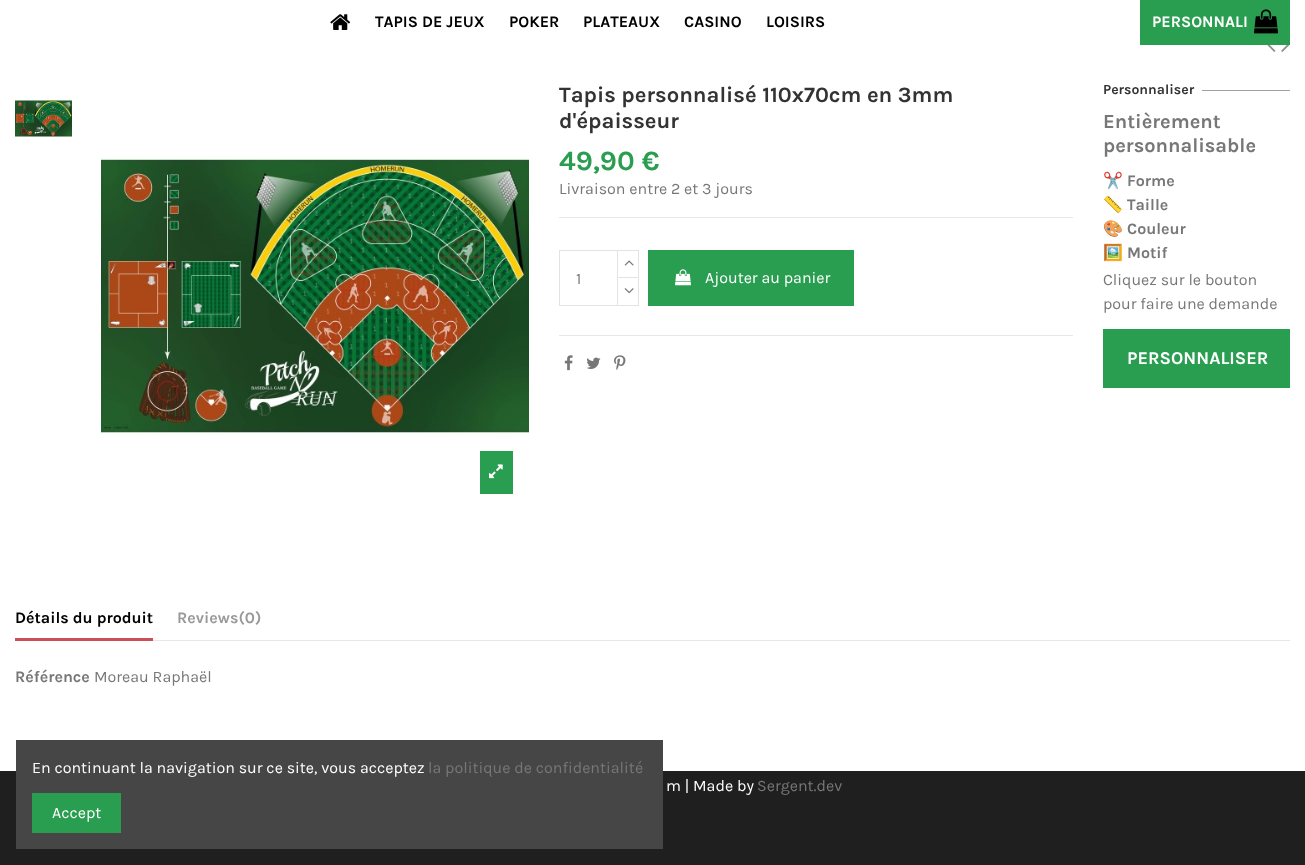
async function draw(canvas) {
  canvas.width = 1305;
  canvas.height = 865;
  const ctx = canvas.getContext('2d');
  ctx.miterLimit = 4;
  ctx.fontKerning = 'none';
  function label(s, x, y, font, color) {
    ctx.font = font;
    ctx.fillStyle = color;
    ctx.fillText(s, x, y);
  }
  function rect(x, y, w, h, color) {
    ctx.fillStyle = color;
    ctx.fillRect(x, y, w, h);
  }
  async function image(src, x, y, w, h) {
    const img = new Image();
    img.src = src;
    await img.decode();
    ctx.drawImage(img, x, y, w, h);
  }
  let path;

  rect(0, 0, 1305, 865, '#1f1f1f');
  rect(0, 0, 1305, 771, '#fff');
  await image('assets/img1.png', 330, 14, 21, 16);
  label('TAPIS DE JEUX', 375, 27, 'bold 16px Karla', '#000');
  label('POKER', 509, 27, 'bold 16px Karla', '#000');
  label('PLATEAUX', 583, 27, 'bold 16px Karla', '#000');
  label('CASINO', 684, 27, 'bold 16px Karla', '#000');
  label('LOISIRS', 766, 27, 'bold 16px Karla', '#000');
  rect(1140, 0, 150, 45, '#2a9e50');
  label('PERSONNALI', 1152, 27, 'bold 16px Karla', '#fff');
  await image('assets/img2.png', 1254, 9, 24, 25);
  await image('assets/img3.png', 1267, 45, 9, 7);
  await image('assets/img4.png', 1281, 45, 8, 7);
  await image('assets/img5.png', 15, 100, 57, 37);
  await image('assets/img6.png', 101, 158, 428, 276);
  rect(480, 451, 33, 43, '#2a9e50');
  await image('assets/img7.png', 489, 464, 14, 15);
  rect(559, 217, 514, 1, '#e7e7e7');
  label('Tapis personnalisé 110x70cm en 3mm', 559, 102, 'bold 22px Karla', '#333');
  label('d\'épaisseur', 559, 128, 'bold 22px Karla', '#333');
  label('49,90 €', 559, 170, 'bold 28px Karla', '#2a9e50');
  label('Livraison entre 2 et 3 jours', 559, 194, '16px Karla', '#777');
  ctx.strokeStyle = '#e3e3e3';
  ctx.strokeRect(559.5, 250.5, 58, 55);
  label('1', 576, 284, '16px Karla', '#777');
  ctx.strokeRect(617.5, 250.5, 21, 27);
  await image('assets/img8.png', 624, 260, 10, 6);
  rect(617, 278, 1, 27, '#fff');
  ctx.fillStyle = '#e3e3e3';
  path = new Path2D('M639 278V306L638 305V279Z');
  ctx.fill(path);
  rect(617, 305, 22, 1, '#e3e3e3');
  path = new Path2D('M617 306V278L618 279V305Z');
  ctx.fill(path);
  await image('assets/img9.png', 624, 288, 10, 6);
  rect(648, 250, 206, 56, '#2a9e50');
  await image('assets/img10.png', 675, 269, 16, 17);
  label('Ajouter au panier', 705, 283, '16px Karla', '#fff');
  rect(559, 335, 514, 1, '#e7e7e7');
  await image('assets/img11.png', 564, 355, 9, 16);
  await image('assets/img12.png', 586, 357, 15, 12);
  await image('assets/img13.png', 614, 355, 12, 15);
  label('Personnaliser', 1103, 94, 'bold 14px Karla', '#333');
  rect(1202, 90, 88, 1, '#a1a1a1');
  label('Entièrement', 1103, 128, 'bold 20px Karla', '#777');
  label('personnalisable', 1103, 152, 'bold 20px Karla', '#777');
  label('✂️', 1103, 186, 'bold 16px Noto Color Emoji', '#777');
  label('Forme', 1127, 186, 'bold 16px Karla', '#777');
  label('📏', 1103, 210, 'bold 16px Noto Color Emoji', '#777');
  label('Taille', 1127, 210, 'bold 16px Karla', '#777');
  label('🎨', 1103, 234, 'bold 16px Noto Color Emoji', '#777');
  label('Couleur', 1127, 234, 'bold 16px Karla', '#777');
  label('🖼️', 1103, 258, 'bold 16px Noto Color Emoji', '#777');
  label('Motif', 1127, 258, 'bold 16px Karla', '#777');
  label('Cliquez sur le bouton', 1103, 285, '16px Karla', '#777');
  label('pour faire une demande', 1103, 309, '16px Karla', '#777');
  rect(1103, 329, 187, 59, '#2a9e50');
  label('PERSONNALISER', 1127, 364, 'bold 18px Karla', '#fff');
  rect(153, 640, 1137, 1, '#e7e7e7');
  rect(15, 638, 138, 3, '#ca5058');
  label('Détails du produit', 15, 623, 'bold 16px Karla', '#000');
  label('Reviews(0)', 177, 623, 'bold 16px Karla', '#999');
  label('Référence', 15, 682, 'bold 16px Karla', '#777');
  label('Moreau Raphaël', 94, 682, '16px Karla', '#777');
  label('m | Made by', 666, 791, '16px Karla', '#fff');
  label('Sergent.dev', 757, 791, '16px Karla', '#777');
  rect(16, 740, 647, 109, '#464646');
  label('En continuant la navigation sur ce site, vous acceptez', 32, 773, '16px Karla', '#fff');
  label('la politique de confidentialité', 428, 773, '16px Karla', '#777');
  rect(32, 793, 89, 40, '#2a9e50');
  label('Accept', 52, 818, '16px Karla', '#fff');
}

draw(document.querySelector('canvas'));
